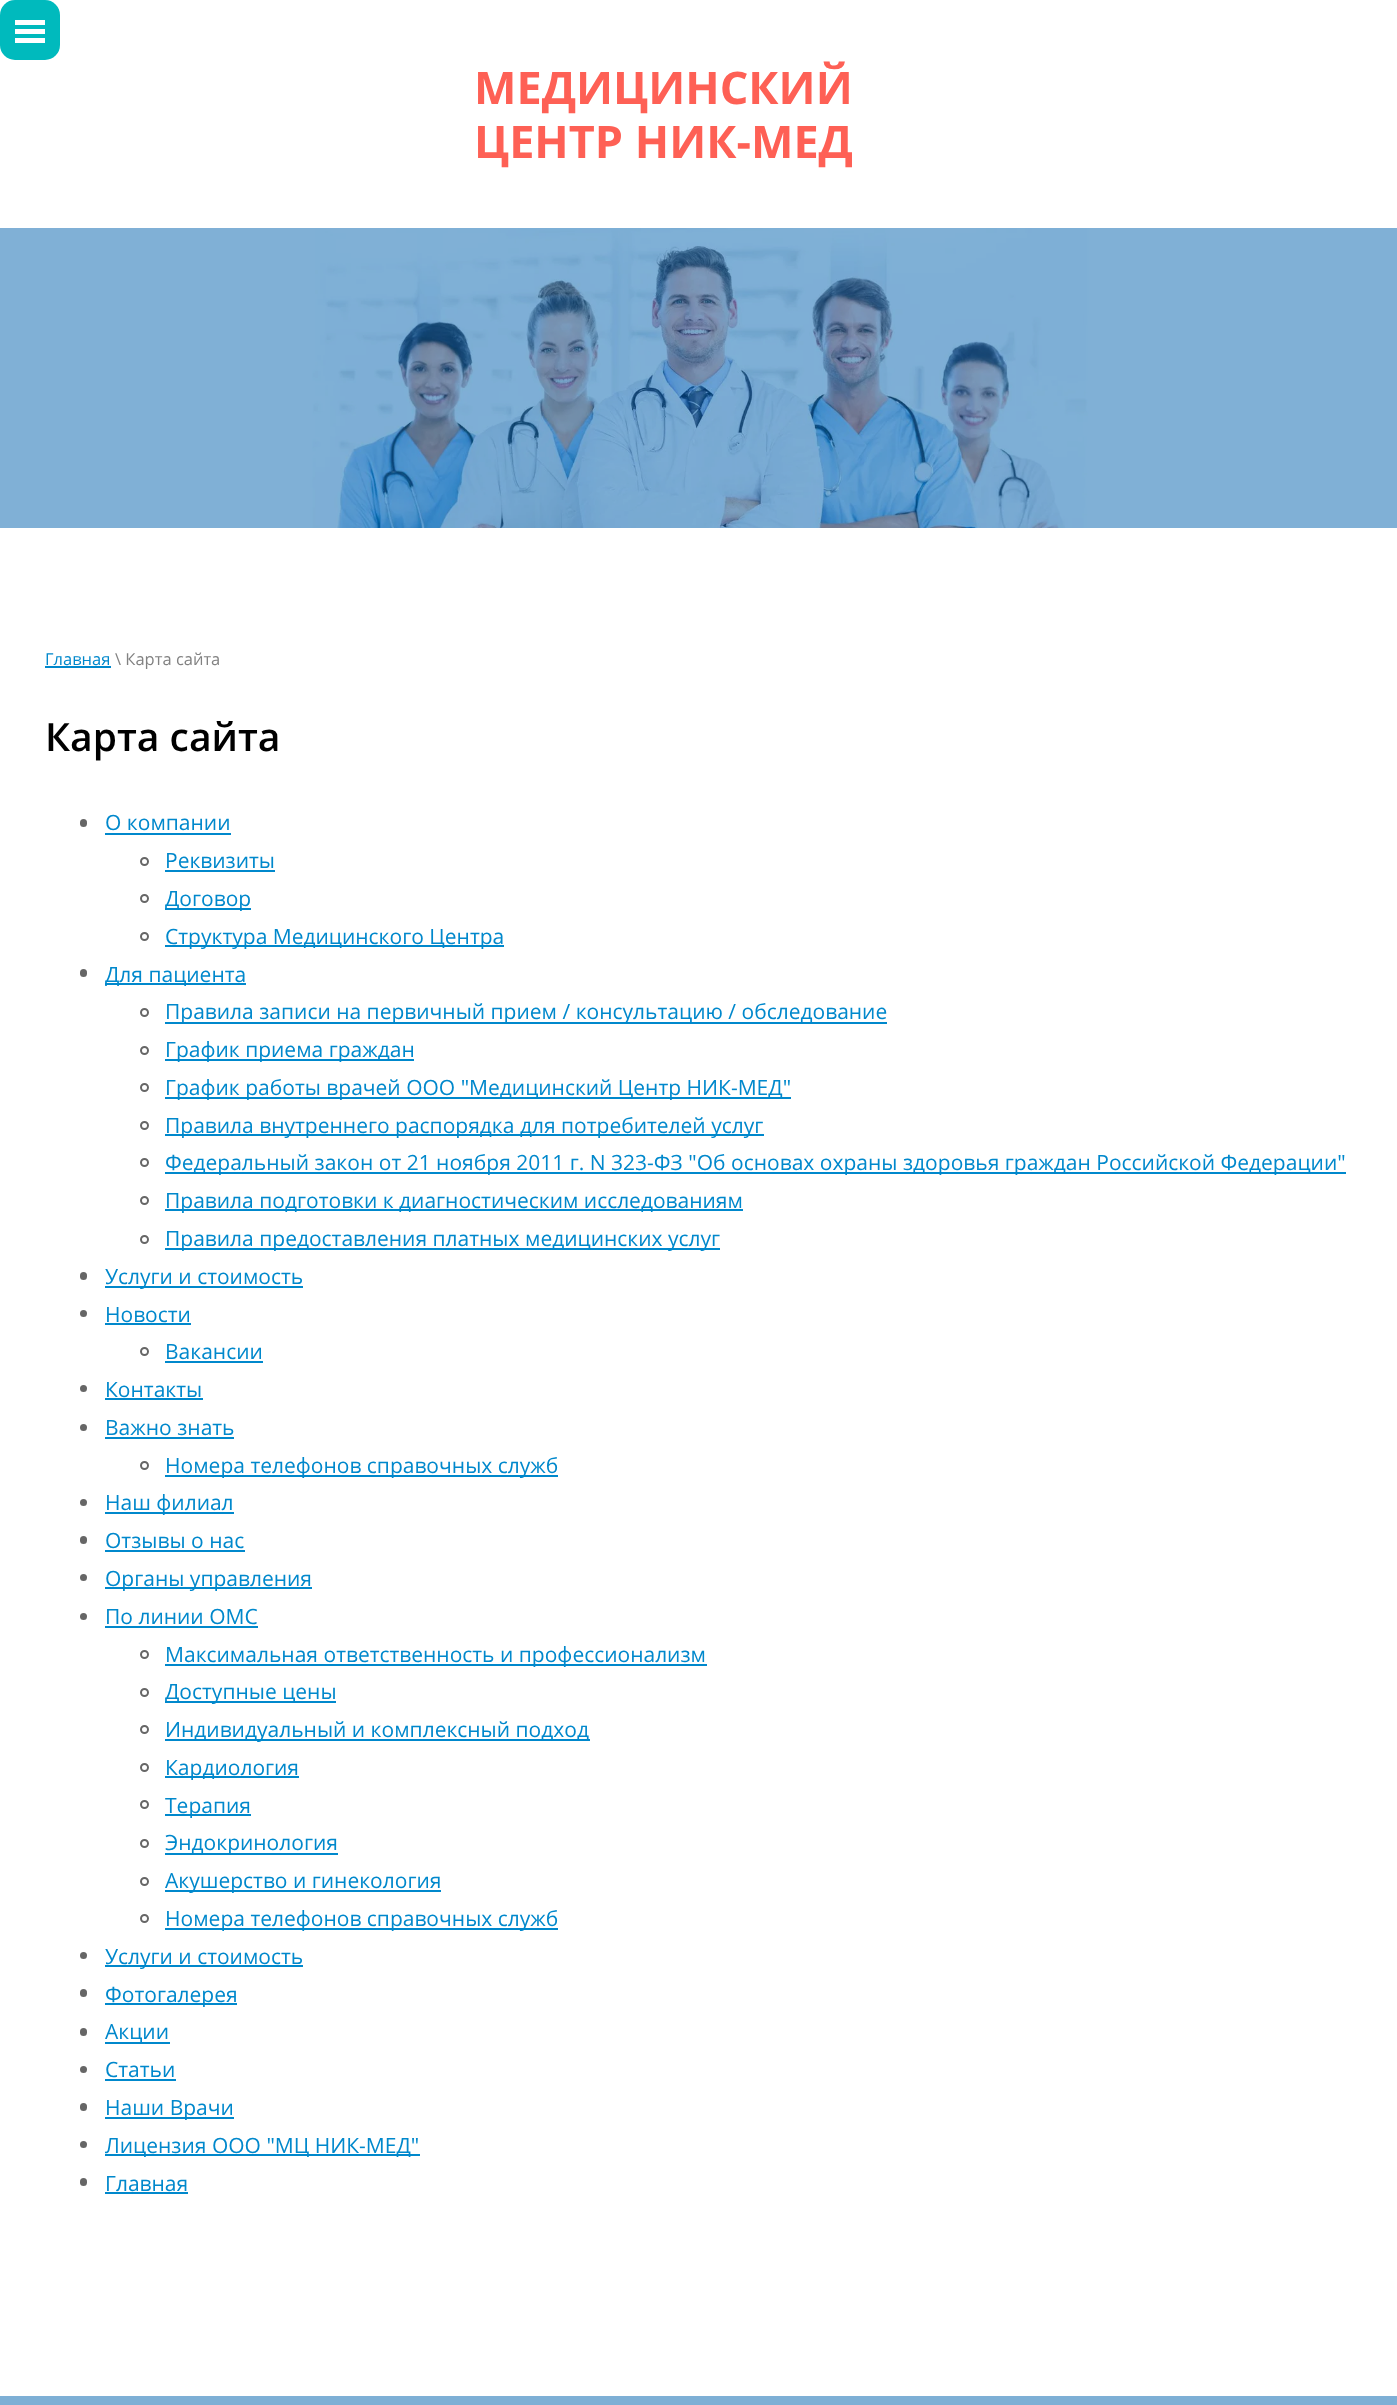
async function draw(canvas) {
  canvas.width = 1397;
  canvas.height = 2405;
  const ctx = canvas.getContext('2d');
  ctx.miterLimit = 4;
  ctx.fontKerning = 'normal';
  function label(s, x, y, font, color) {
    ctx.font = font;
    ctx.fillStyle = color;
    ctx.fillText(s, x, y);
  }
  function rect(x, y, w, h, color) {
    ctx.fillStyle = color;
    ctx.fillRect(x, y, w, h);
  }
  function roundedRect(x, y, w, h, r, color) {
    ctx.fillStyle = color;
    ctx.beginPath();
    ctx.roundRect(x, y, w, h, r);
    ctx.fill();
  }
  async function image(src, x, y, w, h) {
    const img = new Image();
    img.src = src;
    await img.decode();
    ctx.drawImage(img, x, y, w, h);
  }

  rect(0, 0, 1397, 2405, '#fff');
  roundedRect(0, 0, 60, 60, 15, '#00babd');
  rect(15, 20, 30, 5, '#fff');
  rect(15, 29, 30, 5, '#fff');
  rect(15, 38, 30, 5, '#fff');
  label('МЕДИЦИНСКИЙ', 474, 104, 'bold 45px Open Sans', '#fe6055');
  label('ЦЕНТР НИК-МЕД', 474, 158, 'bold 45px Open Sans', '#fe6055');
  await image('assets/img1.png', 0, 228, 1397, 300);
  label('Главная', 45, 665, '16.5px Open Sans', '#08c');
  rect(45, 666, 66, 2, '#08c');
  label('\\ Карта сайта', 115, 665, '16.5px Open Sans', '#828282');
  label('Карта сайта', 45, 751, '600 39px Open Sans', '#000');
  roundedRect(80, 819, 7, 8, 3.5, '#666');
  label('О компании', 105, 830, '21px Open Sans', '#08c');
  rect(105, 833, 126, 2, '#08c');
  ctx.beginPath();
  ctx.arc(144.5, 861.5, 3.5, 0, 2 * Math.PI);
  ctx.strokeStyle = '#666';
  ctx.lineWidth = 2;
  ctx.stroke();
  label('Реквизиты', 165, 868, '21px Open Sans', '#08c');
  rect(165, 870, 110, 2, '#08c');
  ctx.beginPath();
  ctx.arc(144.5, 898.5, 3.5, 0, 2 * Math.PI);
  ctx.stroke();
  rect(165, 908, 86, 2, '#08c');
  label('Договор', 165, 906, '21px Open Sans', '#08c');
  ctx.beginPath();
  ctx.arc(144.5, 936.5, 3.5, 0, 2 * Math.PI);
  ctx.stroke();
  rect(165, 945, 339, 2, '#08c');
  label('Структура Медицинского Центра', 165, 944, '21px Open Sans', '#08c');
  roundedRect(80, 969, 7, 8, 3.5, '#666');
  rect(105, 983, 141, 2, '#08c');
  label('Для пациента', 105, 982, '21px Open Sans', '#08c');
  ctx.beginPath();
  ctx.arc(144.5, 1012.5, 3.5, 0, 2 * Math.PI);
  ctx.stroke();
  rect(165, 1022, 722, 2, '#08c');
  label('Правила записи на первичный прием / консультацию / обследование', 165, 1019, '21px Open Sans', '#08c');
  ctx.beginPath();
  ctx.arc(144.5, 1050.5, 3.5, 0, 2 * Math.PI);
  ctx.stroke();
  rect(165, 1059, 249, 2, '#08c');
  label('График приема граждан', 165, 1057, '21px Open Sans', '#08c');
  ctx.beginPath();
  ctx.arc(144.5, 1087.5, 3.5, 0, 2 * Math.PI);
  ctx.stroke();
  rect(165, 1097, 626, 2, '#08c');
  label('График работы врачей ООО "Медицинский Центр НИК-МЕД"', 165, 1095, '21px Open Sans', '#08c');
  ctx.beginPath();
  ctx.arc(144.5, 1125.5, 3.5, 0, 2 * Math.PI);
  ctx.stroke();
  rect(165, 1134, 599, 2, '#08c');
  label('Правила внутреннего распорядка для потребителей услуг', 165, 1133, '21px Open Sans', '#08c');
  ctx.beginPath();
  ctx.arc(144.5, 1162.5, 3.5, 0, 2 * Math.PI);
  ctx.stroke();
  rect(165, 1172, 1181, 2, '#08c');
  label('Федеральный закон от 21 ноября 2011 г. N 323-ФЗ "Об основах охраны здоровья граждан Российской Федерации"', 165, 1170, '21px Open Sans', '#08c');
  ctx.beginPath();
  ctx.arc(144.5, 1200.5, 3.5, 0, 2 * Math.PI);
  ctx.stroke();
  rect(165, 1209, 578, 2, '#08c');
  label('Правила подготовки к диагностическим исследованиям', 165, 1208, '21px Open Sans', '#08c');
  ctx.beginPath();
  ctx.arc(144.5, 1239.5, 3.5, 0, 2 * Math.PI);
  ctx.stroke();
  rect(165, 1248, 555, 2, '#08c');
  label('Правила предоставления платных медицинских услуг', 165, 1246, '21px Open Sans', '#08c');
  roundedRect(80, 1272, 7, 8, 3.5, '#666');
  rect(105, 1286, 198, 2, '#08c');
  label('Услуги и стоимость', 105, 1284, '21px Open Sans', '#08c');
  ctx.fillStyle = '#666';
  ctx.beginPath();
  ctx.arc(83.5, 1313.5, 3.5, 0, 2 * Math.PI);
  ctx.fill();
  label('Новости', 105, 1322, '21px Open Sans', '#08c');
  rect(105, 1323, 86, 2, '#08c');
  ctx.beginPath();
  ctx.arc(144.5, 1351.5, 3.5, 0, 2 * Math.PI);
  ctx.stroke();
  label('Вакансии', 165, 1359, '21px Open Sans', '#08c');
  rect(165, 1361, 98, 2, '#08c');
  ctx.fillStyle = '#666';
  ctx.beginPath();
  ctx.arc(83.5, 1388.5, 3.5, 0, 2 * Math.PI);
  ctx.fill();
  label('Контакты', 105, 1397, '21px Open Sans', '#08c');
  rect(105, 1398, 98, 2, '#08c');
  ctx.fillStyle = '#666';
  ctx.beginPath();
  ctx.arc(83.5, 1427.5, 3.5, 0, 2 * Math.PI);
  ctx.fill();
  label('Важно знать', 105, 1435, '21px Open Sans', '#08c');
  rect(105, 1437, 129, 2, '#08c');
  ctx.beginPath();
  ctx.arc(144.5, 1465.5, 3.5, 0, 2 * Math.PI);
  ctx.stroke();
  rect(165, 1475, 393, 2, '#08c');
  label('Номера телефонов справочных служб', 165, 1473, '21px Open Sans', '#08c');
  ctx.fillStyle = '#666';
  ctx.beginPath();
  ctx.arc(83.5, 1502.5, 3.5, 0, 2 * Math.PI);
  ctx.fill();
  rect(105, 1512, 129, 2, '#08c');
  label('Наш филиал', 105, 1510, '21px Open Sans', '#08c');
  roundedRect(80, 1536, 7, 8, 3.5, '#666');
  label('Отзывы о нас', 105, 1548, '21px Open Sans', '#08c');
  rect(105, 1550, 140, 2, '#08c');
  ctx.fillStyle = '#666';
  ctx.beginPath();
  ctx.arc(83.5, 1577.5, 3.5, 0, 2 * Math.PI);
  ctx.fill();
  rect(105, 1587, 207, 2, '#08c');
  label('Органы управления', 105, 1586, '21px Open Sans', '#08c');
  ctx.fillStyle = '#666';
  ctx.beginPath();
  ctx.arc(83.5, 1616.5, 3.5, 0, 2 * Math.PI);
  ctx.fill();
  label('По линии ОМС', 105, 1624, '21px Open Sans', '#08c');
  rect(105, 1626, 153, 2, '#08c');
  ctx.beginPath();
  ctx.arc(144.5, 1654.5, 3.5, 0, 2 * Math.PI);
  ctx.stroke();
  rect(165, 1664, 542, 2, '#08c');
  label('Максимальная ответственность и профессионализм', 165, 1662, '21px Open Sans', '#08c');
  ctx.beginPath();
  ctx.arc(144.5, 1692.5, 3.5, 0, 2 * Math.PI);
  ctx.stroke();
  rect(165, 1701, 171, 2, '#08c');
  label('Доступные цены', 165, 1699, '21px Open Sans', '#08c');
  ctx.beginPath();
  ctx.arc(144.5, 1729.5, 3.5, 0, 2 * Math.PI);
  ctx.stroke();
  rect(165, 1739, 425, 2, '#08c');
  label('Индивидуальный и комплексный подход', 165, 1737, '21px Open Sans', '#08c');
  ctx.beginPath();
  ctx.arc(144.5, 1767.5, 3.5, 0, 2 * Math.PI);
  ctx.stroke();
  rect(165, 1776, 134, 2, '#08c');
  label('Кардиология', 165, 1775, '21px Open Sans', '#08c');
  ctx.beginPath();
  ctx.arc(144.5, 1804.5, 3.5, 0, 2 * Math.PI);
  ctx.stroke();
  rect(165, 1814, 86, 2, '#08c');
  label('Терапия', 165, 1813, '21px Open Sans', '#08c');
  ctx.beginPath();
  ctx.arc(144.5, 1843.5, 3.5, 0, 2 * Math.PI);
  ctx.stroke();
  rect(165, 1853, 173, 2, '#08c');
  label('Эндокринология', 165, 1850, '21px Open Sans', '#08c');
  ctx.beginPath();
  ctx.arc(144.5, 1881.5, 3.5, 0, 2 * Math.PI);
  ctx.stroke();
  rect(165, 1890, 276, 2, '#08c');
  label('Акушерство и гинекология', 165, 1888, '21px Open Sans', '#08c');
  ctx.beginPath();
  ctx.arc(144.5, 1918.5, 3.5, 0, 2 * Math.PI);
  ctx.stroke();
  rect(165, 1928, 393, 2, '#08c');
  label('Номера телефонов справочных служб', 165, 1926, '21px Open Sans', '#08c');
  ctx.fillStyle = '#666';
  ctx.beginPath();
  ctx.arc(83.5, 1955.5, 3.5, 0, 2 * Math.PI);
  ctx.fill();
  rect(105, 1965, 198, 2, '#08c');
  label('Услуги и стоимость', 105, 1964, '21px Open Sans', '#08c');
  roundedRect(80, 1989, 7, 8, 3.5, '#666');
  rect(105, 2003, 132, 2, '#08c');
  label('Фотогалерея', 105, 2002, '21px Open Sans', '#08c');
  roundedRect(80, 2028, 7, 8, 3.5, '#666');
  rect(105, 2042, 65, 2, '#08c');
  label('Акции', 105, 2039, '21px Open Sans', '#08c');
  ctx.fillStyle = '#666';
  ctx.beginPath();
  ctx.arc(83.5, 2069.5, 3.5, 0, 2 * Math.PI);
  ctx.fill();
  label('Статьи', 105, 2077, '21px Open Sans', '#08c');
  rect(105, 2079, 71, 2, '#08c');
  roundedRect(80, 2103, 7, 8, 3.5, '#666');
  rect(105, 2117, 129, 2, '#08c');
  label('Наши Врачи', 105, 2115, '21px Open Sans', '#08c');
  ctx.fillStyle = '#666';
  ctx.beginPath();
  ctx.arc(83.5, 2144.5, 3.5, 0, 2 * Math.PI);
  ctx.fill();
  rect(105, 2154, 315, 2, '#08c');
  label('Лицензия ООО "МЦ НИК-МЕД"', 105, 2153, '21px Open Sans', '#08c');
  roundedRect(80, 2178, 7, 8, 3.5, '#666');
  label('Главная', 105, 2191, '21px Open Sans', '#08c');
  rect(105, 2192, 83, 2, '#08c');
  rect(0, 2396, 1397, 9, '#7eafd5');
}

draw(document.querySelector('canvas'));
